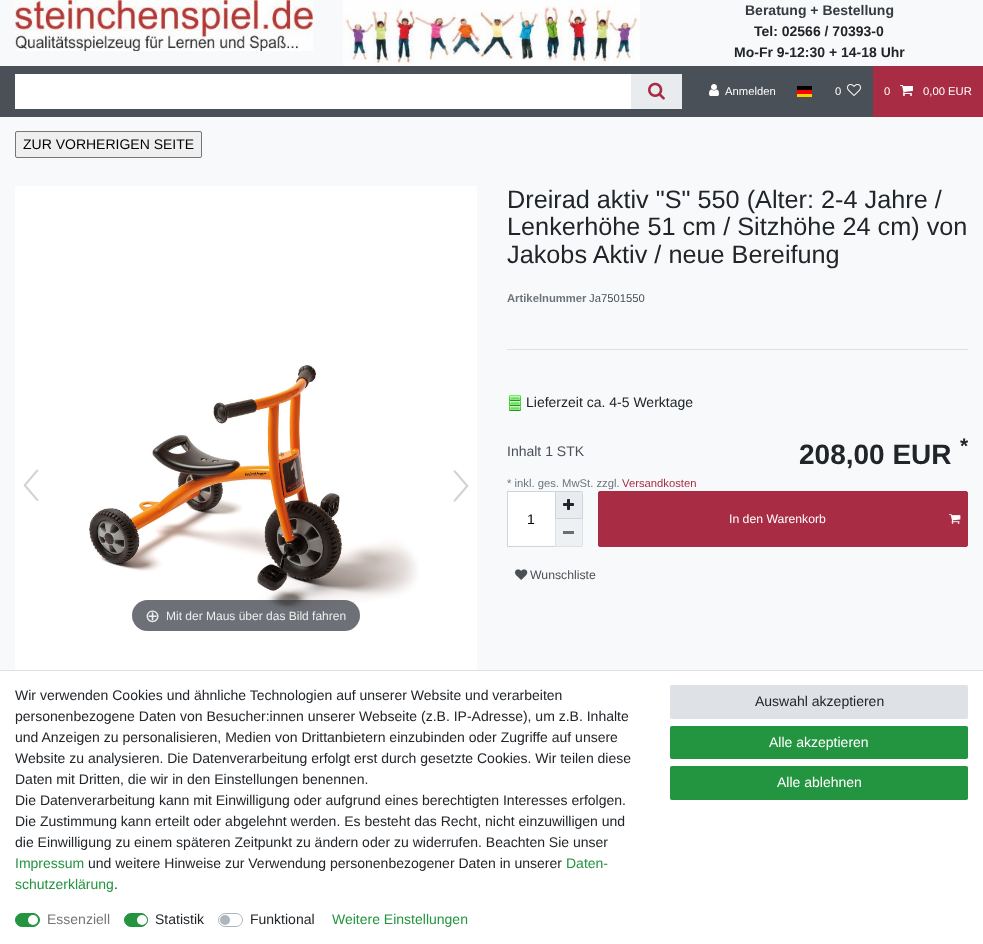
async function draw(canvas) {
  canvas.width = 983;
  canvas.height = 944;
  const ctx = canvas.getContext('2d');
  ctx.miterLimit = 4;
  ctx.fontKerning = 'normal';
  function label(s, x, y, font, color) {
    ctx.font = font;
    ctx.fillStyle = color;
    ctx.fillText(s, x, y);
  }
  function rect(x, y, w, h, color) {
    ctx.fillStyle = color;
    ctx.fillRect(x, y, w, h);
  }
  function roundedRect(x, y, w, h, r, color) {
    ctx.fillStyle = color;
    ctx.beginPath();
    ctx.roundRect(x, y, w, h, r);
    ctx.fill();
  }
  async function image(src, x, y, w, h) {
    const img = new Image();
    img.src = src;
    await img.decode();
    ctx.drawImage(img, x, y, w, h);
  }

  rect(0, 0, 983, 944, '#f8f9fa');
  await image('assets/img1.png', 15, 0, 298, 51);
  await image('assets/img2.png', 343, 0, 297, 66);
  label('Beratung + Bestellung', 745, 15, 'bold 14px Liberation Sans', '#343a40');
  label('Tel: 02566 / 70393-0', 754, 36, 'bold 14px Liberation Sans', '#212529');
  label('Mo-Fr 9-12:30 + 14-18 Uhr', 734, 57, 'bold 14px Liberation Sans', '#212529');
  rect(0, 66, 873, 51, '#495057');
  rect(15, 74, 616, 35, '#fff');
  rect(631, 74, 51, 35, '#e9ecef');
  await image('assets/img3.png', 648, 82, 17, 18);
  await image('assets/img4.png', 709, 84, 10, 12);
  label('Anmelden', 725, 95, '11.25px Liberation Sans', '#fff');
  rect(797, 94, 15, 3, '#fc0');
  rect(797, 86, 15, 4, '#000');
  rect(797, 90, 15, 4, '#f00');
  label('0', 835, 95, '11.25px Liberation Sans', '#fff');
  await image('assets/img5.png', 847, 84, 14, 12);
  rect(873, 66, 110, 51, '#a92c45');
  label('0', 884, 95, '11.25px Liberation Sans', '#fff');
  await image('assets/img6.png', 900, 85, 13, 11);
  label('0,00 EUR', 923, 95, '11.25px Liberation Sans', '#fff');
  ctx.fillStyle = '#efefef';
  ctx.beginPath();
  ctx.roundRect(15.5, 131.5, 186, 26, 1.5);
  ctx.fill();
  ctx.strokeStyle = '#767676';
  ctx.stroke();
  label('ZUR VORHERIGEN SEITE', 23, 149, '14px Liberation Sans', '#000');
  label('Dreirad aktiv "S" 550 (Alter: 2-4 Jahre /', 507, 208, '25.25px Liberation Sans', '#212529');
  label('Lenkerhöhe 51 cm / Sitzhöhe 24 cm) von', 507, 235, '25.25px Liberation Sans', '#212529');
  label('Jakobs Aktiv / neue Bereifung', 507, 263, '25.25px Liberation Sans', '#212529');
  label('Artikelnummer', 507, 302, 'bold 11.25px Liberation Sans', '#6c757d');
  label('Ja7501550', 589, 302, '11.25px Liberation Sans', '#495057');
  rect(507, 349, 461, 1, '#dee2e6');
  await image('assets/img7.png', 509, 395, 12, 16);
  label('Lieferzeit ca. 4-5 Werktage', 526, 407, '14px Liberation Sans', '#212529');
  label('Inhalt 1 STK', 507, 456, '14px Liberation Sans', '#495057');
  label('*', 960, 453, 'bold 21px Liberation Sans', '#212529');
  label('208,00 EUR', 799, 464, 'bold 28px Liberation Sans', '#212529');
  label('* inkl. ges. MwSt. zzgl.', 507, 487, '11.25px Liberation Sans', '#6c757d');
  label('Versandkosten', 622, 487, '11.25px Liberation Sans', '#a92c45');
  rect(508, 492, 47, 54, '#fff');
  rect(507, 491, 48, 1, '#ced4da');
  rect(507, 546, 48, 1, '#ced4da');
  rect(507, 491, 1, 56, '#ced4da');
  label('1', 527, 524, '14px Liberation Sans', '#000');
  ctx.fillStyle = '#e9ecef';
  ctx.beginPath();
  ctx.roundRect(555.5, 491.5, 27, 27, [0, 1, 0, 0]);
  ctx.fill();
  ctx.strokeStyle = '#ced4da';
  ctx.stroke();
  await image('assets/img8.png', 563, 499, 11, 11);
  ctx.fillStyle = '#eef1f3';
  ctx.beginPath();
  ctx.roundRect(555, 519, 28, 28, [0, 0, 1.5, 0]);
  ctx.fill();
  rect(582, 519, 1, 27, '#dde1e5');
  rect(555, 546, 27, 1, '#dde1e5');
  rect(555, 519, 1, 28, '#dde1e5');
  rect(563, 531, 11, 3, '#696c70');
  ctx.fillStyle = '#a92c45';
  ctx.beginPath();
  ctx.roundRect(598.5, 491.5, 369, 55, 1.5);
  ctx.fill();
  ctx.strokeStyle = '#a92c45';
  ctx.stroke();
  label('In den Warenkorb', 729, 523, '12.25px Liberation Sans', '#fff');
  await image('assets/img9.png', 949, 514, 12, 10);
  await image('assets/img10.png', 515, 569, 13, 11);
  label('Wunschliste', 530, 579, '12.25px Liberation Sans', '#495057');
  rect(15, 186, 462, 484, '#fff');
  await image('assets/img11.png', 89, 365, 330, 246);
  await image('assets/img12.png', 23, 469, 16, 32);
  await image('assets/img13.png', 453, 470, 16, 32);
  roundedRect(132, 600, 228, 31, 15.5, '#31333db3');
  label('⊕', 145, 622, '18px DejaVu Sans', '#eee');
  label('Mit der Maus über das Bild fahren', 166, 620, '12px Liberation Sans', '#eee');
  rect(0, 671, 983, 273, '#fff');
  rect(0, 670, 983, 1, '#dee2e6');
  label('Wir verwenden Cookies und ähnliche Technologien auf unserer Website und verarbeiten', 15, 700, '14px Liberation Sans', '#212529');
  label('personenbezogene Daten von Besucher:innen unserer Webseite (z.B. IP-Adresse), um z.B. Inhalte', 15, 721, '14px Liberation Sans', '#212529');
  label('und Anzeigen zu personalisieren, Medien von Drittanbietern einzubinden oder Zugriffe auf unsere', 15, 742, '14px Liberation Sans', '#212529');
  label('Website zu analysieren. Die Datenverarbeitung erfolgt erst durch gesetzte Cookies. Wir teilen diese', 15, 763, '14px Liberation Sans', '#212529');
  label('Daten mit Dritten, die wir in den Einstellungen benennen.', 15, 784, '14px Liberation Sans', '#212529');
  label('Die Datenverarbeitung kann mit Einwilligung oder aufgrund eines berechtigten Interesses erfolgen.', 15, 805, '14px Liberation Sans', '#212529');
  label('Die Zustimmung kann erteilt oder abgelehnt werden. Es besteht das Recht, nicht einzuwilligen und', 15, 826, '14px Liberation Sans', '#212529');
  label('die Einwilligung zu einem späteren Zeitpunkt zu ändern oder zu widerrufen. Beachten Sie unser', 15, 847, '14px Liberation Sans', '#212529');
  label('Impressum', 15, 868, '14px Liberation Sans', '#239440');
  label('und weitere Hinweise zur Verwendung personenbezogener Daten in unserer', 88, 868, '14px Liberation Sans', '#212529');
  label('Daten-', 566, 868, '14px Liberation Sans', '#239440');
  label('schutzerklärung', 15, 889, '14px Liberation Sans', '#239440');
  label('.', 114, 889, '14px Liberation Sans', '#212529');
  ctx.fillStyle = '#239440';
  ctx.beginPath();
  ctx.roundRect(15.5, 913.5, 24, 13, 6.5);
  ctx.fill();
  ctx.strokeStyle = '#239440';
  ctx.stroke();
  label('Essenziell', 47, 924, '14px Liberation Sans', '#767676');
  ctx.fillStyle = '#fff';
  ctx.beginPath();
  ctx.arc(33, 920, 5, 0, 2 * Math.PI);
  ctx.fill();
  ctx.fillStyle = '#239440';
  ctx.beginPath();
  ctx.roundRect(124.5, 913.5, 23, 13, 6.5);
  ctx.fill();
  ctx.stroke();
  label('Statistik', 155, 924, '14px Liberation Sans', '#212529');
  ctx.fillStyle = '#fff';
  ctx.beginPath();
  ctx.arc(142, 920, 5, 0, 2 * Math.PI);
  ctx.fill();
  ctx.beginPath();
  ctx.roundRect(218.5, 913.5, 24, 13, 6.5);
  ctx.strokeStyle = '#adb5bd';
  ctx.stroke();
  label('Funktional', 250, 924, '14px Liberation Sans', '#212529');
  ctx.fillStyle = '#adb5bd';
  ctx.beginPath();
  ctx.arc(225, 920, 5, 0, 2 * Math.PI);
  ctx.fill();
  label('Weitere Einstellungen', 332, 924, '14px Liberation Sans', '#239440');
  ctx.fillStyle = '#dee2e6';
  ctx.beginPath();
  ctx.roundRect(670.5, 685.5, 297, 33, 1);
  ctx.fill();
  ctx.strokeStyle = '#dee2e6';
  ctx.stroke();
  label('Auswahl akzeptieren', 755, 706, '14px Liberation Sans', '#212529');
  ctx.fillStyle = '#239440';
  ctx.beginPath();
  ctx.roundRect(670.5, 726.5, 297, 32, 1);
  ctx.fill();
  ctx.strokeStyle = '#239440';
  ctx.stroke();
  label('Alle akzeptieren', 769, 747, '14px Liberation Sans', '#fff');
  ctx.fillStyle = '#239440';
  ctx.beginPath();
  ctx.roundRect(670.5, 766.5, 297, 33, 1);
  ctx.fill();
  ctx.stroke();
  label('Alle ablehnen', 777, 787, '14px Liberation Sans', '#fff');
}

draw(document.querySelector('canvas'));
